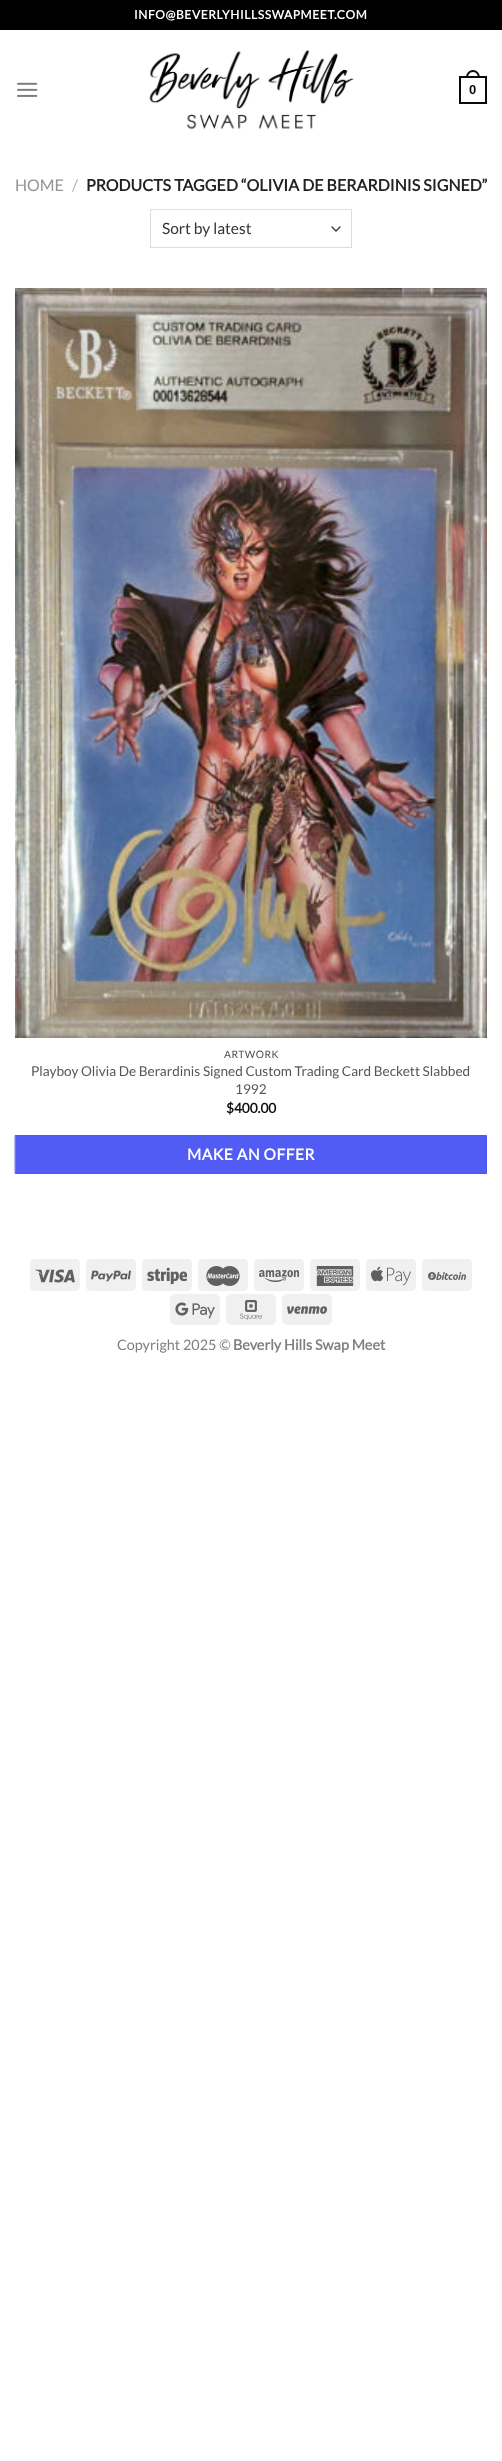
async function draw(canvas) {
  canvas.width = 502;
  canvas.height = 2461;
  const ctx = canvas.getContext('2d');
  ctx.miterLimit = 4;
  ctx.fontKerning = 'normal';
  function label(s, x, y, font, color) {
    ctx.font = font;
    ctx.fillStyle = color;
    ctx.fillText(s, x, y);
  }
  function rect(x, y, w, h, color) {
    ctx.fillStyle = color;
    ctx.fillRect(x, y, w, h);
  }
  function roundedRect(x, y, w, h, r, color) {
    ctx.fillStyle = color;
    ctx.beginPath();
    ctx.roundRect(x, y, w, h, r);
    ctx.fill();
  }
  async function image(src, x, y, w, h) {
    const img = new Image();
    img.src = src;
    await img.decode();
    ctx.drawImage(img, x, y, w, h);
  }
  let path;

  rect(0, 0, 502, 2461, '#fff');
  rect(0, 0, 502, 30, '#000');
  ctx.letterSpacing = '0.6px';
  label('INFO@BEVERLYHILLSSWAPMEET.COM', 134, 19, 'bold 12px Lato', '#fff');
  await image('assets/img1.png', 17, 82, 21, 15);
  await image('assets/img2.png', 149, 50, 205, 80);
  ctx.strokeStyle = '#0a0a0a';
  ctx.lineWidth = 2;
  ctx.strokeRect(460, 77, 26, 26);
  ctx.fillStyle = '#0a0a0a';
  path = new Path2D('M473 70C477.5 70 480 74 480 78H466C466 74 468.5 70 473 70ZM473 72C476.5 72 478 75 478 78H468C468 75 469.5 72 473 72Z');
  ctx.fill(path, 'evenodd');
  ctx.letterSpacing = '0px';
  label('0', 469, 94, 'bold 13px Liberation Sans', '#0a0a0a');
  label('HOME', 15, 191, '16px Lato', '#949494');
  label('/', 72, 191, '16px Lato', '#b2b2b2');
  label('PRODUCTS TAGGED “OLIVIA DE BERARDINIS SIGNED”', 86, 191, 'bold 16px Lato', '#222');
  path = new Path2D('M332 227L336 231L340 227');
  ctx.strokeStyle = '#333';
  ctx.lineWidth = 1.3;
  ctx.lineCap = 'round';
  ctx.lineJoin = 'round';
  ctx.stroke(path);
  ctx.strokeStyle = '#ddd';
  ctx.lineWidth = 1;
  ctx.lineJoin = 'miter';
  ctx.strokeRect(150.5, 209.5, 201, 38);
  label('Sort by latest', 162, 234, '15.5px Lato', '#333');
  await image('assets/img3.png', 15, 288, 472, 750);
  ctx.letterSpacing = '0.5px';
  label('ARTWORK', 224, 1058, '10.25px Lato', '#4d4d4d');
  ctx.letterSpacing = '0px';
  label('Playboy Olivia De Berardinis Signed Custom Trading Card Beckett Slabbed', 31, 1076, '13.6px Lato', '#565656');
  label('1992', 235, 1094, '13.6px Lato', '#565656');
  label('$400.00', 226, 1113, 'bold 13.6px Lato', '#111');
  ctx.fillStyle = '#515cf5';
  ctx.beginPath();
  ctx.rect(15.5, 1135.5, 471, 38);
  ctx.fill();
  ctx.strokeStyle = '#4d57e9';
  ctx.stroke();
  ctx.letterSpacing = '0.5px';
  label('MAKE AN OFFER', 187, 1160, 'bold 15.5px Lato', '#fff');
  roundedRect(30, 1259, 50, 32, 5, '#f0f0f0');
  await image('assets/img4.png', 35, 1269, 40, 14);
  roundedRect(86, 1259, 50, 32, 5, '#f0f0f0');
  await image('assets/img5.png', 91, 1270, 40, 12);
  roundedRect(142, 1259, 50, 32, 5, '#f0f0f0');
  await image('assets/img6.png', 147, 1267, 40, 18);
  roundedRect(198, 1259, 50, 32, 5, '#f0f0f0');
  await image('assets/img7.png', 206, 1266, 34, 20);
  roundedRect(254, 1259, 50, 32, 5, '#f0f0f0');
  await image('assets/img8.png', 259, 1270, 40, 12);
  roundedRect(310, 1259, 50, 32, 5, '#f0f0f0');
  await image('assets/img9.png', 316, 1266, 38, 20);
  roundedRect(366, 1259, 50, 32, 5, '#f0f0f0');
  await image('assets/img10.png', 371, 1266, 40, 20);
  roundedRect(422, 1259, 50, 32, 5, '#f0f0f0');
  await image('assets/img11.png', 428, 1272, 38, 8);
  roundedRect(170, 1294, 50, 31, 5, '#f0f0f0');
  await image('assets/img12.png', 175, 1302, 40, 17);
  roundedRect(226, 1294, 50, 31, 5, '#f0f0f0');
  await image('assets/img13.png', 240, 1300, 22, 20);
  roundedRect(282, 1294, 50, 31, 5, '#f0f0f0');
  await image('assets/img14.png', 287, 1306, 40, 8);
  ctx.letterSpacing = '0px';
  label('Copyright 2025 ©', 117, 1350, '14.4px Lato', '#808080');
  label('Beverly Hills Swap Meet', 233, 1350, 'bold 14.4px Lato', '#808080');
}

draw(document.querySelector('canvas'));
